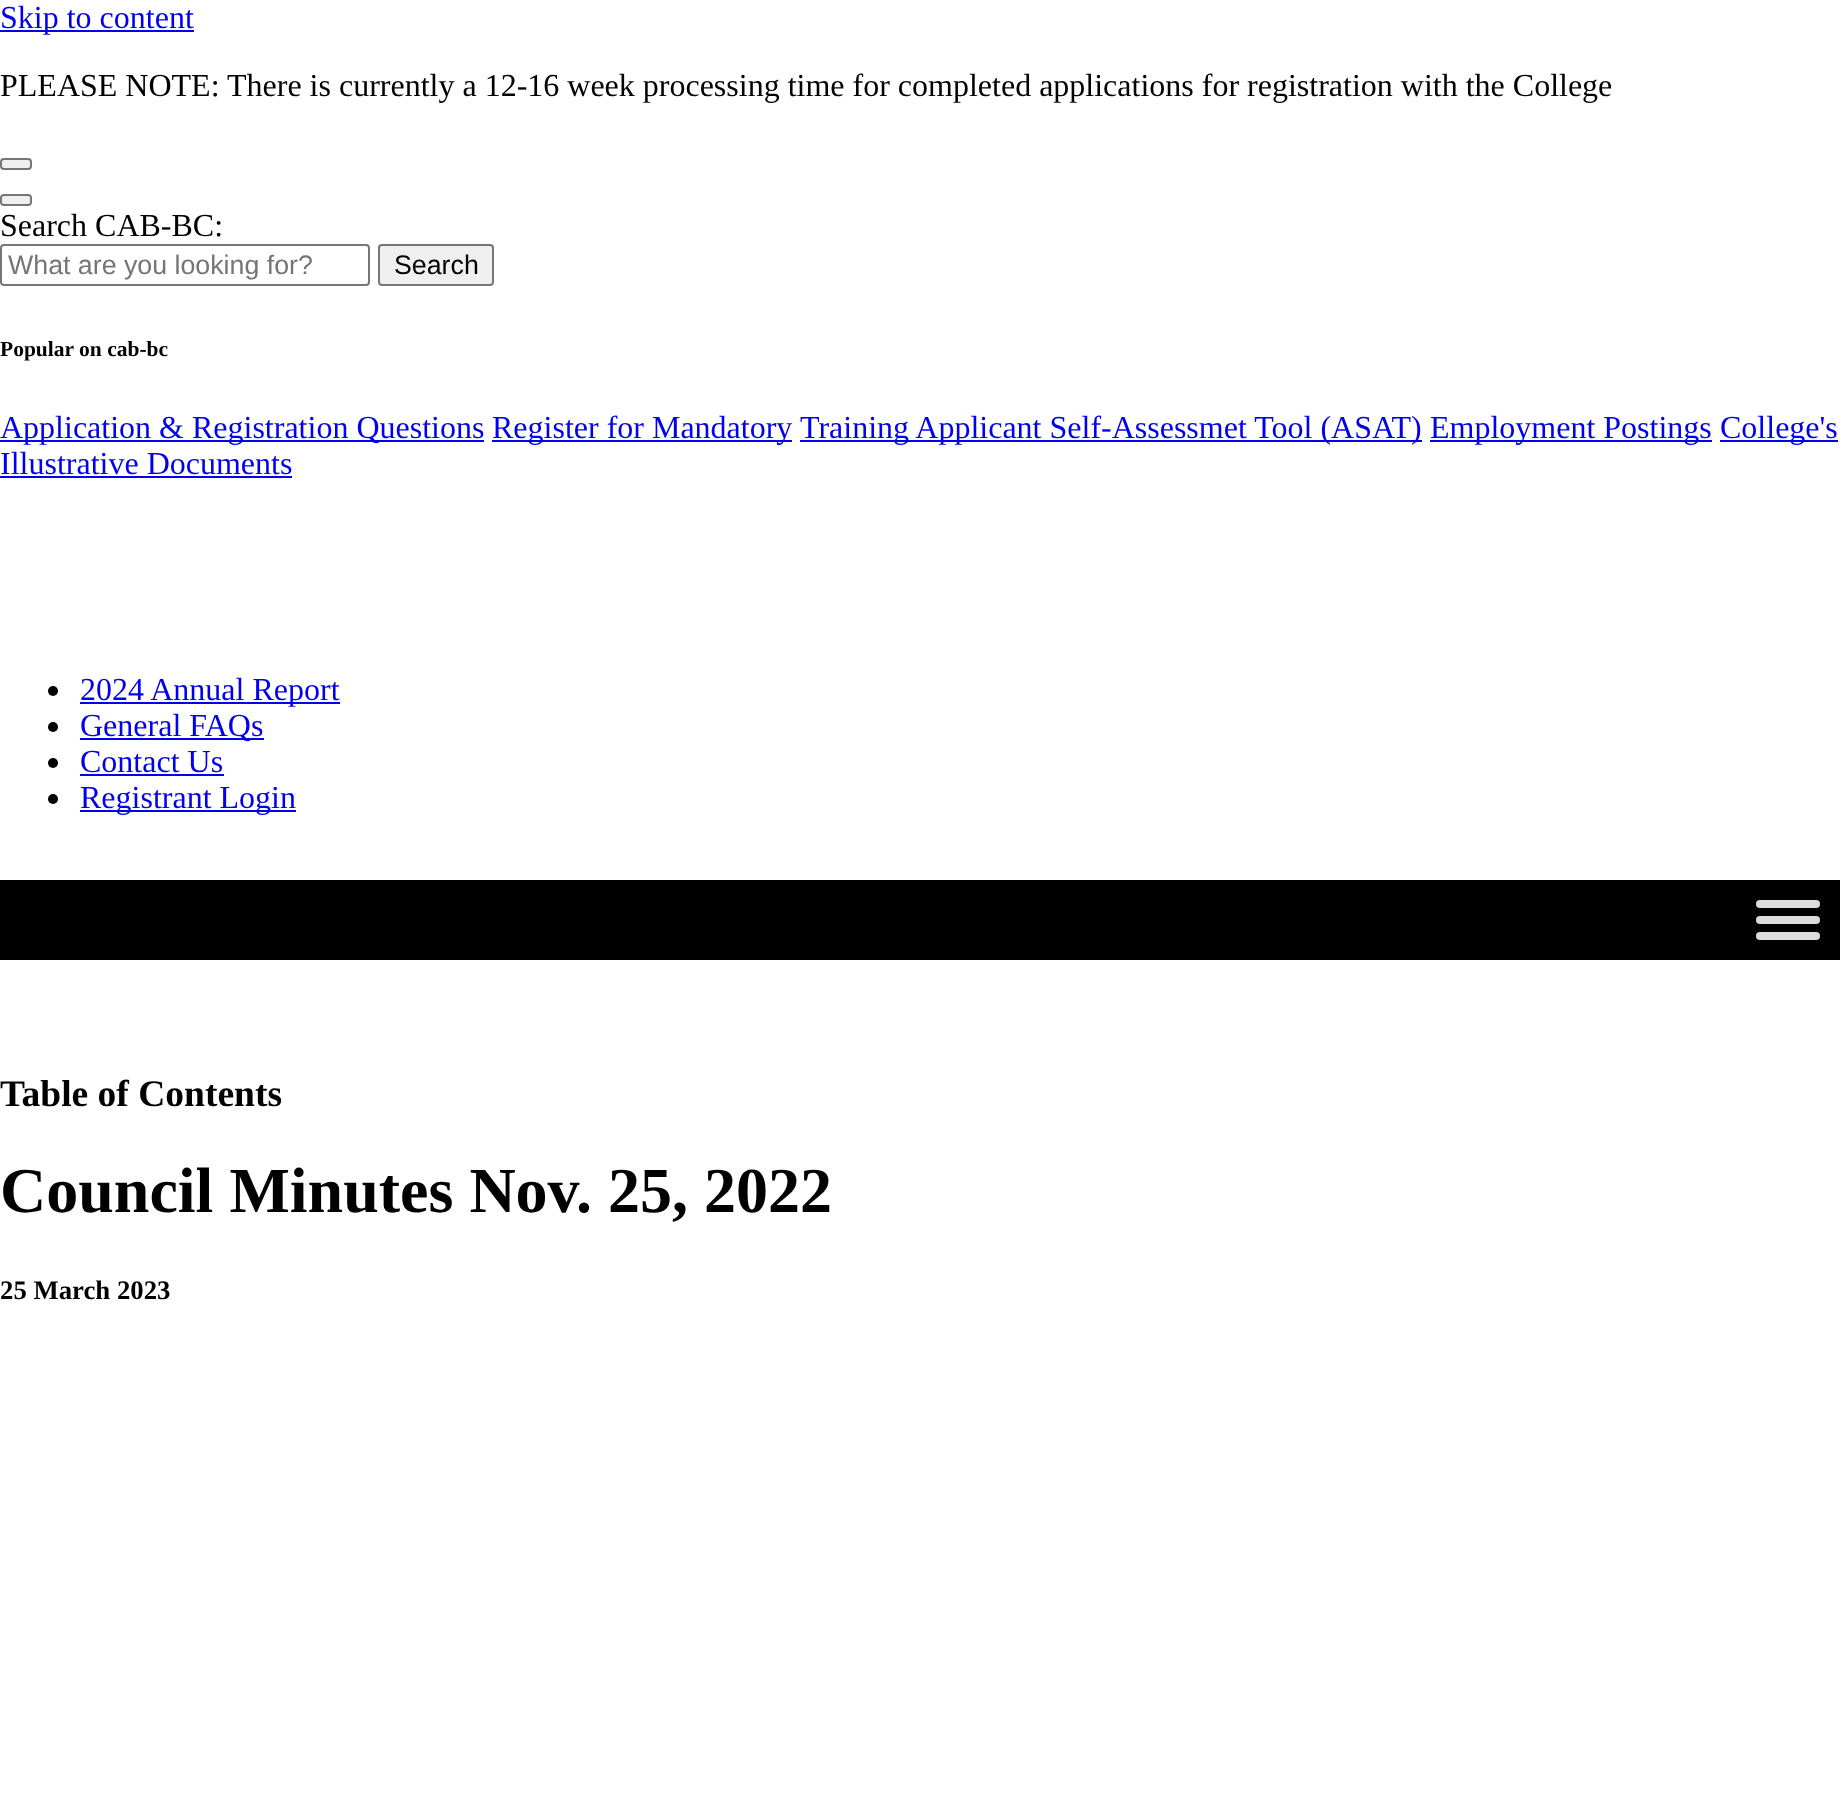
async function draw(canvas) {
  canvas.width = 1840;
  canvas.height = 1797;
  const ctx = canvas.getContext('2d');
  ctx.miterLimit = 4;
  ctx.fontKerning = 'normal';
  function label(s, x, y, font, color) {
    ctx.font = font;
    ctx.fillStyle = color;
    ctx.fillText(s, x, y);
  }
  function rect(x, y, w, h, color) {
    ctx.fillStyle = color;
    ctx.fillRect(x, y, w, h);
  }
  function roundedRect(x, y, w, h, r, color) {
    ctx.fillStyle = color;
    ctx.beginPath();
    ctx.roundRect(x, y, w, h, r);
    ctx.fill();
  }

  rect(0, 0, 1840, 1797, '#fff');
  rect(0, 30, 194, 2, '#00e');
  label('Skip to content', 0, 28, '32px Liberation Serif', '#00e');
  label('PLEASE NOTE: There is currently a 12-16 week processing time for completed applications for registration with the College', 0, 96, '32px Liberation Serif', '#000');
  ctx.fillStyle = '#efefef';
  ctx.beginPath();
  ctx.roundRect(1, 159, 30, 10, 3);
  ctx.fill();
  ctx.strokeStyle = '#767676';
  ctx.lineWidth = 2;
  ctx.stroke();
  ctx.beginPath();
  ctx.roundRect(1, 195, 30, 10, 3);
  ctx.fill();
  ctx.stroke();
  label('Search CAB-BC:', 0, 236, '32px Liberation Serif', '#000');
  ctx.beginPath();
  ctx.roundRect(1, 245, 368, 40, 3);
  ctx.stroke();
  label('What are you looking for?', 8, 274, '26.75px Liberation Sans', '#757575');
  ctx.fillStyle = '#efefef';
  ctx.beginPath();
  ctx.roundRect(379, 245, 114, 40, 3);
  ctx.fill();
  ctx.stroke();
  label('Search', 394, 274, '26.75px Liberation Sans', '#000');
  label('Popular on cab-bc', 0, 356, 'bold 21.5px Liberation Serif', '#000');
  rect(0, 440, 484, 2, '#00e');
  label('Application & Registration Questions', 0, 438, '32px Liberation Serif', '#00e');
  rect(492, 440, 300, 2, '#00e');
  label('Register for Mandatory', 492, 438, '32px Liberation Serif', '#00e');
  rect(800, 440, 622, 2, '#00e');
  label('Training Applicant Self-Assessmet Tool (ASAT)', 800, 438, '32px Liberation Serif', '#00e');
  rect(1430, 440, 282, 2, '#00e');
  label('Employment Postings', 1430, 438, '32px Liberation Serif', '#00e');
  rect(1720, 440, 118, 2, '#00e');
  label('College\'s', 1720, 438, '32px Liberation Serif', '#00e');
  label('Illustrative Documents', 0, 474, '32px Liberation Serif', '#00e');
  rect(0, 476, 292, 2, '#00e');
  ctx.fillStyle = '#000';
  ctx.beginPath();
  ctx.arc(53, 691, 5, 0, 2 * Math.PI);
  ctx.fill();
  rect(80, 702, 260, 2, '#00e');
  label('2024 Annual Report', 80, 700, '32px Liberation Serif', '#00e');
  ctx.fillStyle = '#000';
  ctx.beginPath();
  ctx.arc(53, 727, 5, 0, 2 * Math.PI);
  ctx.fill();
  rect(80, 738, 184, 2, '#00e');
  label('General FAQs', 80, 736, '32px Liberation Serif', '#00e');
  ctx.fillStyle = '#000';
  ctx.beginPath();
  ctx.arc(53, 763, 5, 0, 2 * Math.PI);
  ctx.fill();
  label('Contact Us', 80, 772, '32px Liberation Serif', '#00e');
  rect(80, 774, 144, 2, '#00e');
  ctx.fillStyle = '#000';
  ctx.beginPath();
  ctx.arc(53, 799, 5, 0, 2 * Math.PI);
  ctx.fill();
  rect(80, 810, 216, 2, '#00e');
  label('Registrant Login', 80, 808, '32px Liberation Serif', '#00e');
  rect(0, 880, 1840, 80, '#000');
  roundedRect(1756, 900, 64, 8, 4, '#ddd');
  roundedRect(1756, 916, 64, 8, 4, '#ddd');
  roundedRect(1756, 932, 64, 8, 4, '#ddd');
  label('Table of Contents', 0, 1106, 'bold 37.5px Liberation Serif', '#000');
  label('Council Minutes Nov. 25, 2022', 0, 1212, 'bold 64px Liberation Serif', '#000');
  label('25 March 2023', 0, 1299, 'bold 26.75px Liberation Serif', '#000');
}

draw(document.querySelector('canvas'));
